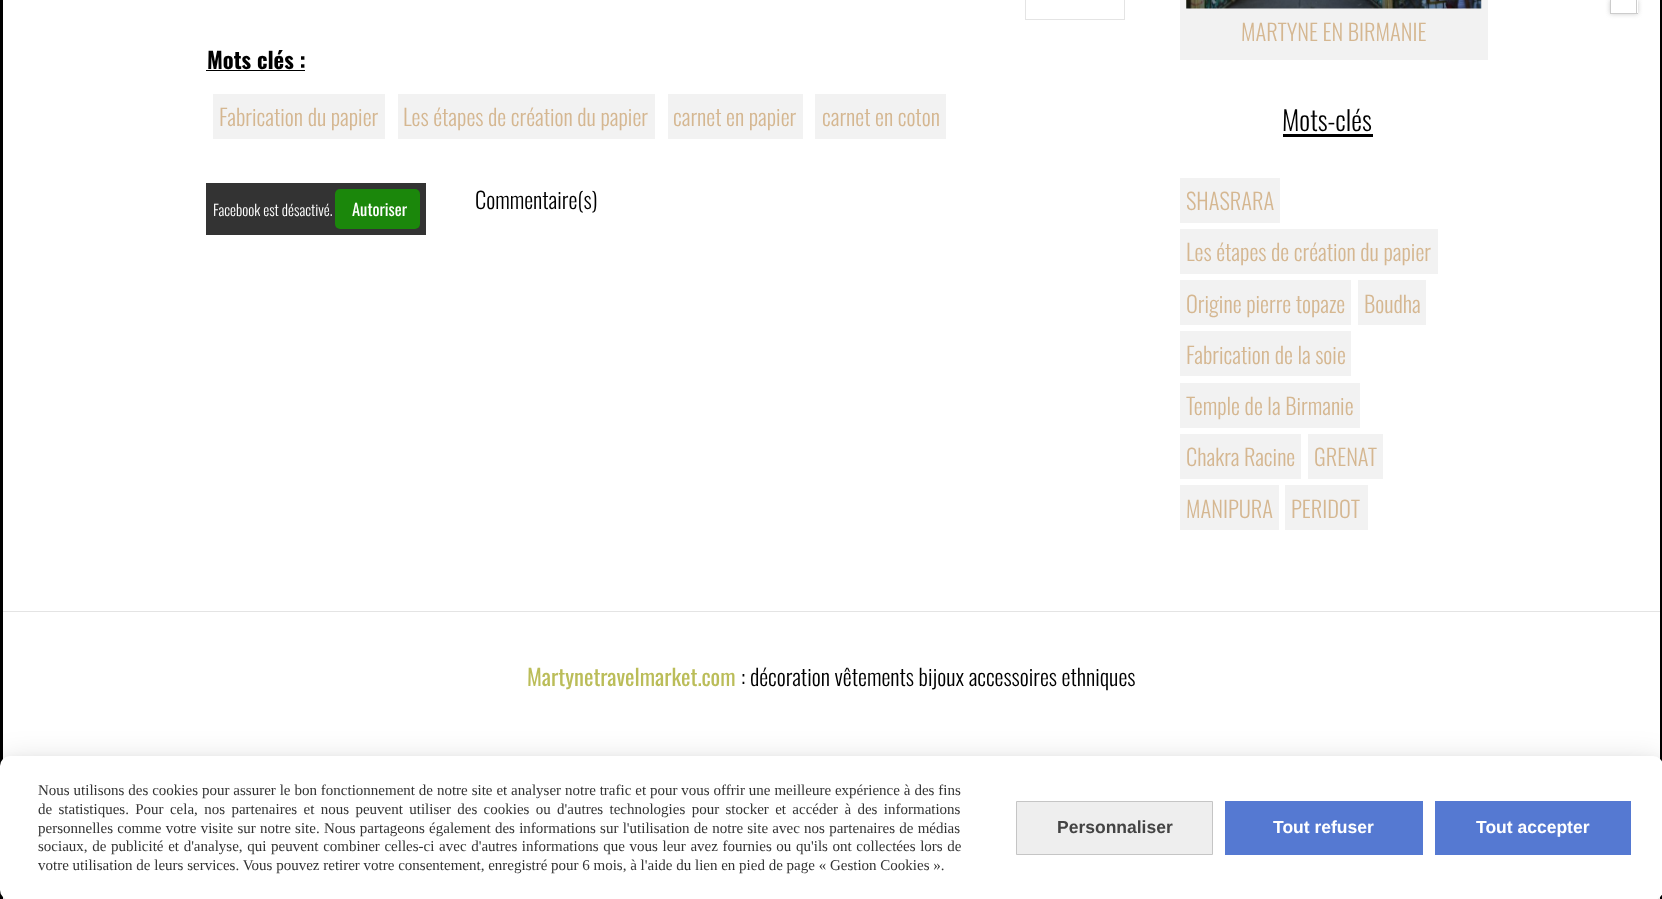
async function draw(canvas) {
  canvas.width = 1662;
  canvas.height = 899;
  const ctx = canvas.getContext('2d');
  ctx.miterLimit = 4;
  ctx.fontKerning = 'normal';
  function label(s, x, y, font, color) {
    ctx.font = font;
    ctx.fillStyle = color;
    ctx.fillText(s, x, y);
  }
  function rect(x, y, w, h, color) {
    ctx.fillStyle = color;
    ctx.fillRect(x, y, w, h);
  }
  function roundedRect(x, y, w, h, r, color) {
    ctx.fillStyle = color;
    ctx.beginPath();
    ctx.roundRect(x, y, w, h, r);
    ctx.fill();
  }
  async function image(src, x, y, w, h) {
    const img = new Image();
    img.src = src;
    await img.decode();
    ctx.drawImage(img, x, y, w, h);
  }

  rect(0, 0, 1662, 899, '#fff');
  ctx.strokeStyle = '#000';
  ctx.lineWidth = 3;
  ctx.strokeRect(1.5, -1.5, 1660, 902);
  ctx.fillStyle = '#ccc';
  ctx.filter = 'blur(2.5px)';
  ctx.beginPath();
  ctx.rect(1610, 0, 28, 14);
  ctx.fill();
  ctx.filter = 'none';
  rect(1611, 0, 27, 13, '#fff');
  rect(1636, 0, 1, 14, '#ccc');
  rect(1610, 13, 28, 1, '#ccc');
  rect(1610, 0, 1, 14, '#ccc');
  ctx.strokeStyle = '#e4e4e4';
  ctx.lineWidth = 1;
  ctx.strokeRect(1025.5, -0.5, 99, 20);
  label('Mots clés :', 207, 69, 'bold 22.5px Oswald', '#000');
  rect(206, 70, 99, 1, '#000');
  rect(213, 94, 172, 45, '#f2f2f2');
  label('Fabrication du papier', 219, 126, '300 22.5px Oswald', '#d5b791');
  rect(398, 94, 257, 45, '#f2f2f2');
  label('Les étapes de création du papier', 403, 126, '300 22.5px Oswald', '#d5b791');
  rect(668, 94, 135, 45, '#f2f2f2');
  label('carnet en papier', 673, 126, '300 22.5px Oswald', '#d5b791');
  rect(815, 94, 131, 45, '#f2f2f2');
  label('carnet en coton', 822, 126, '300 22.5px Oswald', '#d5b791');
  rect(206, 183, 220, 52, '#333');
  label('Facebook est désactivé.', 213, 216, '300 15px Oswald', '#fff');
  roundedRect(335, 189, 85, 40, 5, '#1b870b');
  label('Autoriser', 352, 216, '16.5px Oswald', '#fff');
  label('Commentaire(s)', 475, 209, '300 22.5px Oswald', '#000');
  rect(1180, 0, 308, 60, '#f2f2f2');
  await image('assets/img1.png', 1186, 0, 296, 9);
  label('MARTYNE EN BIRMANIE', 1241, 41, '300 22.5px Oswald', '#d5b791');
  label('Mots-clés', 1282, 131, '300 27px Oswald', '#000');
  rect(1283, 134, 90, 3, '#000');
  rect(1180, 178, 100, 45, '#f2f2f2');
  label('SHASRARA', 1186, 210, '300 22.5px Oswald', '#d5b791');
  rect(1180, 229, 258, 45, '#f2f2f2');
  label('Les étapes de création du papier', 1186, 261, '300 22.5px Oswald', '#d5b791');
  rect(1180, 280, 171, 45, '#f2f2f2');
  label('Origine pierre topaze', 1186, 313, '300 22.5px Oswald', '#d5b791');
  rect(1358, 280, 68, 45, '#f2f2f2');
  label('Boudha', 1364, 313, '300 22.5px Oswald', '#d5b791');
  rect(1180, 331, 171, 45, '#f2f2f2');
  label('Fabrication de la soie', 1186, 364, '300 22.5px Oswald', '#d5b791');
  rect(1180, 383, 180, 45, '#f2f2f2');
  label('Temple de la Birmanie', 1186, 415, '300 22.5px Oswald', '#d5b791');
  rect(1180, 434, 121, 45, '#f2f2f2');
  label('Chakra Racine', 1186, 466, '300 22.5px Oswald', '#d5b791');
  rect(1308, 434, 75, 45, '#f2f2f2');
  label('GRENAT', 1314, 466, '300 22.5px Oswald', '#d5b791');
  rect(1180, 485, 99, 45, '#f2f2f2');
  label('MANIPURA', 1186, 518, '300 22.5px Oswald', '#d5b791');
  rect(1285, 485, 83, 45, '#f2f2f2');
  label('PERIDOT', 1291, 518, '300 22.5px Oswald', '#d5b791');
  rect(3, 611, 1657, 1, '#e4e4e4');
  label('Martynetravelmarket.com', 527, 686, '22.5px Oswald', '#bbbd59');
  label(': décoration vêtements bijoux accessoires ethniques', 741, 686, '300 22.5px Oswald', '#000');
  ctx.fillStyle = '#0000000d';
  ctx.filter = 'blur(4px)';
  ctx.beginPath();
  ctx.roundRect(0, 759, 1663, 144, 10);
  ctx.fill();
  ctx.filter = 'none';
  ctx.fillStyle = '#00000026';
  ctx.filter = 'blur(15px)';
  ctx.beginPath();
  ctx.roundRect(0, 761, 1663, 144, 10);
  ctx.fill();
  ctx.filter = 'none';
  roundedRect(0, 756, 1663, 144, 10, '#fff');
  ctx.wordSpacing = '0.15px';
  label('Nous utilisons des cookies pour assurer le bon fonctionnement de notre site et analyser notre trafic et pour vous offrir une meilleure expérience à des fins', 38, 795, '15px Liberation Serif', '#333');
  ctx.wordSpacing = '2.6px';
  label('de statistiques. Pour cela, nos partenaires et nous peuvent utiliser des cookies ou d\'autres technologies pour stocker et accéder à des informations', 38, 814, '15px Liberation Serif', '#333');
  ctx.wordSpacing = '0.5px';
  label('personnelles comme votre visite sur notre site. Nous partageons également des informations sur l\'utilisation de notre site avec nos partenaires de médias', 38, 833, '15px Liberation Serif', '#333');
  ctx.wordSpacing = '0.9px';
  label('sociaux, de publicité et d\'analyse, qui peuvent combiner celles-ci avec d\'autres informations que vous leur avez fournies ou qu\'ils ont collectées lors de', 38, 851, '15px Liberation Serif', '#333');
  ctx.wordSpacing = '0px';
  label('votre utilisation de leurs services. Vous pouvez retirer votre consentement, enregistré pour 6 mois, à l\'aide du lien en pied de page « Gestion Cookies ».', 38, 870, '15px Liberation Serif', '#333');
  ctx.fillStyle = '#eee';
  ctx.beginPath();
  ctx.rect(1016.5, 801.5, 196, 53);
  ctx.fill();
  ctx.strokeStyle = '#c5c5c5';
  ctx.stroke();
  label('Personnaliser', 1057, 833, 'bold 17.5px Liberation Sans', '#444');
  rect(1225, 801, 198, 54, '#5579d2');
  label('Tout refuser', 1273, 833, 'bold 17.5px Liberation Sans', '#fff');
  rect(1435, 801, 196, 54, '#5579d2');
  label('Tout accepter', 1476, 833, 'bold 17.5px Liberation Sans', '#fff');
}

draw(document.querySelector('canvas'));
